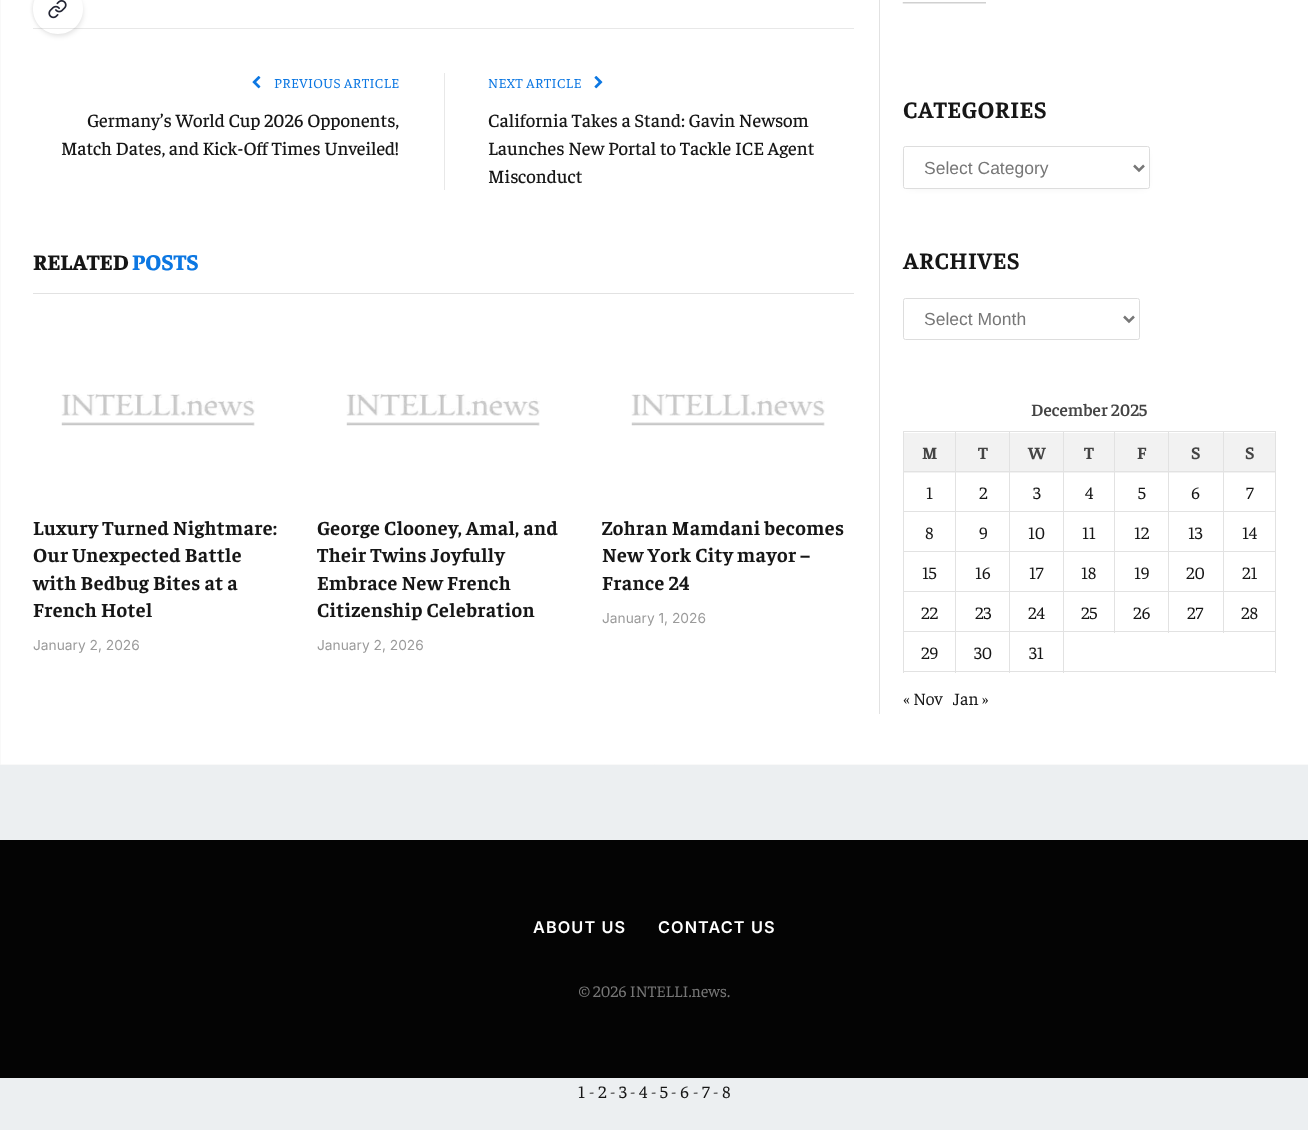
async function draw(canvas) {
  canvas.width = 1308;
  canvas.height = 1130;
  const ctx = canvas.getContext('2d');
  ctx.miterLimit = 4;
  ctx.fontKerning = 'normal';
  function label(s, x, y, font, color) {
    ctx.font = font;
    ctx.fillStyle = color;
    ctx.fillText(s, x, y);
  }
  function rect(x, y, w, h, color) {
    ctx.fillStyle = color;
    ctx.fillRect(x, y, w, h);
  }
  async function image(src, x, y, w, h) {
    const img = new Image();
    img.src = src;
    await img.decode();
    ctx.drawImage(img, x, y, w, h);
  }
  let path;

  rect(0, 0, 1308, 1130, '#eceff1');
  ctx.fillStyle = '#fff';
  ctx.beginPath();
  ctx.rect(0.5, -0.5, 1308, 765);
  ctx.fill();
  ctx.strokeStyle = '#f9f9f9';
  ctx.stroke();
  rect(33, 28, 821, 1, '#e8e8e8');
  ctx.save();
  path = new Path2D('M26 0H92V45H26ZM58-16C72-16 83-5 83 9C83 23 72 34 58 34C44 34 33 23 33 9C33-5 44-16 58-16Z');
  ctx.clip(path, 'evenodd');
  ctx.fillStyle = '#0000001f';
  ctx.filter = 'blur(2.5px)';
  ctx.beginPath();
  ctx.roundRect(35, -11, 48, 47, 23.5);
  ctx.fill();
  ctx.filter = 'none';
  ctx.restore();
  ctx.save();
  path = new Path2D('M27 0H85V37H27ZM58-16C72-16 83-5 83 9C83 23 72 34 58 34C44 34 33 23 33 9C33-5 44-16 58-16Z');
  ctx.clip(path, 'evenodd');
  ctx.fillStyle = '#0000000d';
  ctx.filter = 'blur(1px)';
  ctx.beginPath();
  ctx.roundRect(31, -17, 50, 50, 25);
  ctx.fill();
  ctx.filter = 'none';
  ctx.restore();
  await image('assets/img1.png', 48, 0, 19, 19);
  await image('assets/img2.png', 252, 76, 9, 13);
  ctx.letterSpacing = '0.4px';
  label('PREVIOUS ARTICLE', 274, 88, '13.75px Faustina', '#0c77e2');
  ctx.letterSpacing = '0px';
  label('Germany’s World Cup 2026 Opponents,', 87, 127, '500 18.75px Faustina', '#161616');
  label('Match Dates, and Kick-Off Times Unveiled!', 61, 155, '500 18.75px Faustina', '#161616');
  rect(444, 73, 1, 117, '#e8e8e8');
  ctx.letterSpacing = '0.4px';
  label('NEXT ARTICLE', 488, 88, '13.75px Faustina', '#0c77e2');
  await image('assets/img3.png', 594, 76, 9, 13);
  ctx.letterSpacing = '0px';
  label('California Takes a Stand: Gavin Newsom', 488, 127, '500 18.75px Faustina', '#161616');
  label('Launches New Portal to Tackle ICE Agent', 488, 155, '500 18.75px Faustina', '#161616');
  label('Misconduct', 488, 183, '500 18.75px Faustina', '#161616');
  rect(33, 293, 821, 1, '#e2e2e2');
  label('RELATED', 33, 270, '800 22.5px Faustina', '#161616');
  label('POSTS', 132, 270, '800 22.5px Faustina', '#0c77e2');
  await image('assets/img4.png', 61, 394, 194, 32);
  ctx.letterSpacing = '0.4px';
  label('Luxury Turned Nightmare:', 33, 535, 'bold 20px Faustina', '#161616');
  label('Our Unexpected Battle', 33, 562, 'bold 20px Faustina', '#161616');
  label('with Bedbug Bites at a', 33, 590, 'bold 20px Faustina', '#161616');
  label('French Hotel', 33, 617, 'bold 20px Faustina', '#161616');
  ctx.letterSpacing = '0px';
  label('January 2, 2026', 33, 650, '13.75px Inter', '#9b9b9b');
  await image('assets/img4.png', 346, 394, 194, 32);
  ctx.letterSpacing = '0.4px';
  label('George Clooney, Amal, and', 317, 535, 'bold 20px Faustina', '#161616');
  label('Their Twins Joyfully', 317, 562, 'bold 20px Faustina', '#161616');
  label('Embrace New French', 317, 590, 'bold 20px Faustina', '#161616');
  label('Citizenship Celebration', 317, 617, 'bold 20px Faustina', '#161616');
  ctx.letterSpacing = '0px';
  label('January 2, 2026', 317, 650, '13.75px Inter', '#9b9b9b');
  await image('assets/img5.png', 631, 394, 194, 32);
  ctx.letterSpacing = '0.4px';
  label('Zohran Mamdani becomes', 602, 535, 'bold 20px Faustina', '#161616');
  label('New York City mayor –', 602, 562, 'bold 20px Faustina', '#161616');
  label('France 24', 602, 590, 'bold 20px Faustina', '#161616');
  ctx.letterSpacing = '0px';
  label('January 1, 2026', 602, 623, '13.75px Inter', '#9b9b9b');
  rect(879, 0, 1, 714, '#e2e2e2');
  await image('assets/img6.png', 902, 2, 84, 2);
  ctx.letterSpacing = '0.5px';
  label('CATEGORIES', 903, 118, 'bold 23.75px Faustina', '#161616');
  ctx.fillStyle = '#0000001a';
  ctx.filter = 'blur(4.5px)';
  ctx.beginPath();
  ctx.rect(908, 154, 237, 32);
  ctx.fill();
  ctx.filter = 'none';
  ctx.fillStyle = '#fff';
  ctx.beginPath();
  ctx.roundRect(903.5, 146.5, 246, 42, 2);
  ctx.fill();
  ctx.strokeStyle = '#ddd';
  ctx.stroke();
  path = new Path2D('M1134 165.5L1139 170.5L1144 165.5');
  ctx.strokeStyle = '#777';
  ctx.lineWidth = 2.5;
  ctx.stroke(path);
  ctx.letterSpacing = '0px';
  label('Select Category', 924, 174, '17.5px Liberation Sans', '#777');
  ctx.letterSpacing = '0.5px';
  label('ARCHIVES', 903, 269, 'bold 23.75px Faustina', '#161616');
  ctx.beginPath();
  ctx.roundRect(903.5, 298.5, 236, 41, 2);
  ctx.strokeStyle = '#ddd';
  ctx.lineWidth = 1;
  ctx.stroke();
  path = new Path2D('M1124 316.5L1129 321.5L1134 316.5');
  ctx.strokeStyle = '#777';
  ctx.lineWidth = 2.5;
  ctx.stroke(path);
  ctx.letterSpacing = '0px';
  label('Select Month', 924, 325, '17.5px Liberation Sans', '#777');
  label('December 2025', 1031, 416, '600 17.5px Faustina', '#444');
  rect(904, 433, 51, 40, '#f2f2f2');
  rect(1223, 431, 53, 1, '#e2e2e2');
  rect(1169, 433, 54, 40, '#f2f2f2');
  rect(1224, 433, 51, 40, '#f2f2f2');
  rect(1223, 471, 53, 1, '#e2e2e2');
  rect(1223, 511, 53, 1, '#e2e2e2');
  rect(1223, 551, 53, 1, '#e2e2e2');
  rect(1223, 591, 53, 1, '#e2e2e2');
  rect(1063, 631, 213, 1, '#e2e2e2');
  rect(1223, 591, 1, 42, '#e2e2e2');
  rect(1168, 591, 56, 1, '#e2e2e2');
  rect(1223, 551, 1, 42, '#e2e2e2');
  rect(1168, 551, 56, 1, '#e2e2e2');
  rect(1223, 511, 1, 42, '#e2e2e2');
  rect(1168, 511, 56, 1, '#e2e2e2');
  rect(1223, 471, 1, 42, '#e2e2e2');
  rect(1168, 471, 56, 1, '#e2e2e2');
  rect(1223, 431, 1, 42, '#e2e2e2');
  rect(1168, 431, 56, 1, '#e2e2e2');
  rect(1115, 433, 53, 40, '#f2f2f2');
  rect(1168, 591, 1, 42, '#e2e2e2');
  rect(1114, 591, 55, 1, '#e2e2e2');
  rect(1168, 551, 1, 42, '#e2e2e2');
  rect(1114, 551, 55, 1, '#e2e2e2');
  rect(1168, 511, 1, 42, '#e2e2e2');
  rect(1114, 511, 55, 1, '#e2e2e2');
  rect(1168, 471, 1, 42, '#e2e2e2');
  rect(1114, 471, 55, 1, '#e2e2e2');
  rect(1168, 431, 1, 42, '#e2e2e2');
  rect(1114, 431, 55, 1, '#e2e2e2');
  rect(1064, 433, 50, 40, '#f2f2f2');
  rect(1114, 591, 1, 42, '#e2e2e2');
  rect(1063, 591, 52, 1, '#e2e2e2');
  rect(1114, 551, 1, 42, '#e2e2e2');
  rect(1063, 551, 52, 1, '#e2e2e2');
  rect(1114, 511, 1, 42, '#e2e2e2');
  rect(1063, 511, 52, 1, '#e2e2e2');
  rect(1114, 471, 1, 42, '#e2e2e2');
  rect(1063, 471, 52, 1, '#e2e2e2');
  rect(1114, 431, 1, 42, '#e2e2e2');
  rect(1063, 431, 52, 1, '#e2e2e2');
  rect(1010, 433, 53, 40, '#f2f2f2');
  rect(1275, 631, 1, 42, '#e2e2e2');
  rect(1063, 671, 213, 1, '#e2e2e2');
  rect(1063, 631, 1, 42, '#e2e2e2');
  rect(1009, 631, 55, 1, '#e2e2e2');
  rect(1063, 591, 1, 42, '#e2e2e2');
  rect(1009, 591, 55, 1, '#e2e2e2');
  rect(1063, 551, 1, 42, '#e2e2e2');
  rect(1009, 551, 55, 1, '#e2e2e2');
  rect(1063, 511, 1, 42, '#e2e2e2');
  rect(1009, 511, 55, 1, '#e2e2e2');
  rect(1063, 471, 1, 42, '#e2e2e2');
  rect(1009, 471, 55, 1, '#e2e2e2');
  rect(1063, 431, 1, 42, '#e2e2e2');
  rect(1009, 431, 55, 1, '#e2e2e2');
  rect(956, 433, 53, 40, '#f2f2f2');
  rect(1009, 671, 55, 1, '#e2e2e2');
  rect(1009, 631, 1, 42, '#e2e2e2');
  rect(955, 631, 55, 1, '#e2e2e2');
  rect(1009, 591, 1, 42, '#e2e2e2');
  rect(955, 591, 55, 1, '#e2e2e2');
  rect(1009, 551, 1, 42, '#e2e2e2');
  rect(955, 551, 55, 1, '#e2e2e2');
  rect(1009, 511, 1, 42, '#e2e2e2');
  rect(955, 511, 55, 1, '#e2e2e2');
  rect(1009, 471, 1, 42, '#e2e2e2');
  rect(955, 471, 55, 1, '#e2e2e2');
  rect(1009, 431, 1, 42, '#e2e2e2');
  rect(955, 431, 55, 1, '#e2e2e2');
  rect(955, 671, 55, 1, '#e2e2e2');
  rect(955, 631, 1, 42, '#e2e2e2');
  rect(903, 631, 53, 1, '#e2e2e2');
  rect(955, 591, 1, 42, '#e2e2e2');
  rect(903, 591, 53, 1, '#e2e2e2');
  rect(955, 551, 1, 42, '#e2e2e2');
  rect(903, 551, 53, 1, '#e2e2e2');
  rect(955, 511, 1, 42, '#e2e2e2');
  rect(903, 511, 53, 1, '#e2e2e2');
  rect(955, 471, 1, 42, '#e2e2e2');
  rect(903, 471, 53, 1, '#e2e2e2');
  rect(955, 431, 1, 42, '#e2e2e2');
  rect(903, 431, 53, 1, '#e2e2e2');
  rect(903, 671, 53, 1, '#e2e2e2');
  rect(903, 631, 1, 42, '#e2e2e2');
  rect(903, 591, 1, 42, '#e2e2e2');
  rect(903, 551, 1, 42, '#e2e2e2');
  rect(903, 511, 1, 42, '#e2e2e2');
  rect(903, 471, 1, 42, '#e2e2e2');
  rect(903, 431, 1, 42, '#e2e2e2');
  label('M', 922, 459, 'bold 17.5px Faustina', '#444');
  label('T', 978, 459, 'bold 17.5px Faustina', '#444');
  label('W', 1028, 459, 'bold 17.5px Faustina', '#444');
  label('T', 1084, 459, 'bold 17.5px Faustina', '#444');
  label('F', 1137, 459, 'bold 17.5px Faustina', '#444');
  label('S', 1191, 459, 'bold 17.5px Faustina', '#444');
  rect(1275, 591, 1, 42, '#e2e2e2');
  rect(1275, 551, 1, 42, '#e2e2e2');
  rect(1275, 511, 1, 42, '#e2e2e2');
  rect(1275, 471, 1, 42, '#e2e2e2');
  rect(1275, 431, 1, 42, '#e2e2e2');
  label('S', 1245, 459, 'bold 17.5px Faustina', '#444');
  label('1', 926, 499, '17.5px Faustina', '#161616');
  label('2', 979, 499, '17.5px Faustina', '#161616');
  label('3', 1033, 499, '17.5px Faustina', '#161616');
  label('4', 1085, 499, '17.5px Faustina', '#161616');
  label('5', 1138, 499, '17.5px Faustina', '#161616');
  label('6', 1191, 499, '17.5px Faustina', '#161616');
  label('7', 1246, 499, '17.5px Faustina', '#161616');
  label('8', 925, 539, '17.5px Faustina', '#161616');
  label('9', 979, 539, '17.5px Faustina', '#161616');
  label('10', 1028, 539, '17.5px Faustina', '#161616');
  label('11', 1082, 539, '17.5px Faustina', '#161616');
  label('12', 1134, 539, '17.5px Faustina', '#161616');
  label('13', 1188, 539, '17.5px Faustina', '#161616');
  label('14', 1242, 539, '17.5px Faustina', '#161616');
  label('15', 922, 579, '17.5px Faustina', '#161616');
  label('16', 975, 579, '17.5px Faustina', '#161616');
  label('17', 1029, 579, '17.5px Faustina', '#161616');
  label('18', 1081, 579, '17.5px Faustina', '#161616');
  label('19', 1134, 579, '17.5px Faustina', '#161616');
  label('20', 1186, 579, '17.5px Faustina', '#161616');
  label('21', 1242, 579, '17.5px Faustina', '#161616');
  label('22', 921, 619, '17.5px Faustina', '#161616');
  label('23', 975, 619, '17.5px Faustina', '#161616');
  label('24', 1028, 619, '17.5px Faustina', '#161616');
  label('25', 1081, 619, '17.5px Faustina', '#161616');
  label('26', 1133, 619, '17.5px Faustina', '#161616');
  label('27', 1187, 619, '17.5px Faustina', '#161616');
  label('28', 1241, 619, '17.5px Faustina', '#161616');
  label('29', 921, 659, '17.5px Faustina', '#161616');
  label('30', 974, 659, '17.5px Faustina', '#161616');
  label('31', 1029, 659, '17.5px Faustina', '#161616');
  label('« Nov', 903, 705, '17.5px Faustina', '#161616');
  label('Jan »', 953, 705, '17.5px Faustina', '#161616');
  rect(0, 840, 1308, 238, '#040404');
  ctx.letterSpacing = '1.1px';
  label('ABOUT US', 533, 933, '600 16.25px Inter', '#fff');
  label('CONTACT US', 658, 933, '600 16.25px Inter', '#fff');
  ctx.letterSpacing = '0px';
  label('© 2026 INTELLI.news.', 579, 997, '16.25px Faustina', '#777');
  label('1', 578, 1098, '17.5px Faustina', '#161616');
  label('-', 589, 1098, '17.5px Faustina', '#444');
  label('2', 598, 1098, '17.5px Faustina', '#161616');
  label('-', 610, 1098, '17.5px Faustina', '#444');
  label('3', 619, 1098, '17.5px Faustina', '#161616');
  label('-', 630, 1098, '17.5px Faustina', '#444');
  label('4', 639, 1098, '17.5px Faustina', '#161616');
  label('-', 651, 1098, '17.5px Faustina', '#444');
  label('5', 660, 1098, '17.5px Faustina', '#161616');
  label('-', 671, 1098, '17.5px Faustina', '#444');
  label('6', 680, 1098, '17.5px Faustina', '#161616');
  label('-', 693, 1098, '17.5px Faustina', '#444');
  label('7', 702, 1098, '17.5px Faustina', '#161616');
  label('-', 713, 1098, '17.5px Faustina', '#444');
  label('8', 722, 1098, '17.5px Faustina', '#161616');
}

draw(document.querySelector('canvas'));
